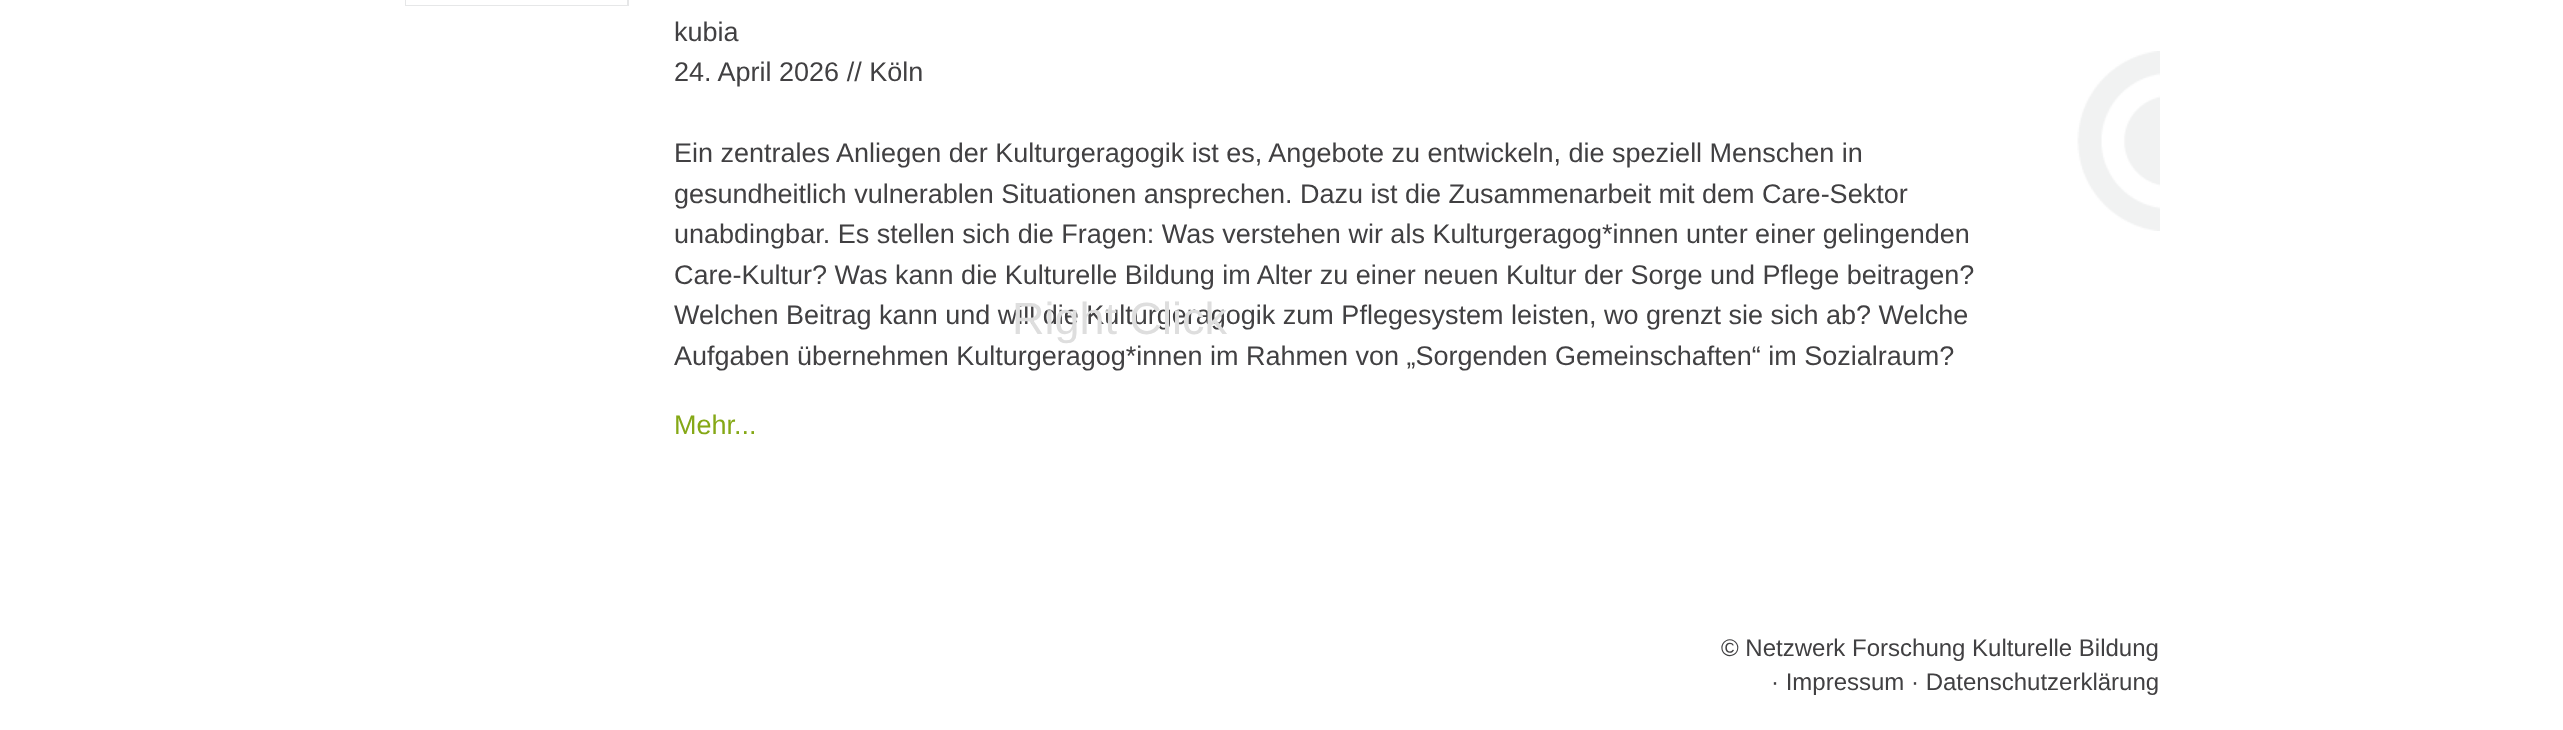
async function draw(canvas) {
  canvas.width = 2563;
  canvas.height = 730;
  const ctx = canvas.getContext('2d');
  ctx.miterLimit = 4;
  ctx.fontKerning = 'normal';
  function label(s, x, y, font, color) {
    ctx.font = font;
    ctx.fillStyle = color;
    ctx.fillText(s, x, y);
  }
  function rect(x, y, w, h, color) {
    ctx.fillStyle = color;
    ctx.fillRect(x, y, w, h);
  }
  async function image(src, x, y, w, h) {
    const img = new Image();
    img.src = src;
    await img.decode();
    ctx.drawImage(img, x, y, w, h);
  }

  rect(0, 0, 2563, 730, '#fff');
  await image('assets/img1.png', 2077, 51, 83, 180);
  ctx.strokeStyle = '#e6e7e8';
  ctx.lineWidth = 2;
  ctx.strokeRect(406, -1, 222, 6);
  rect(406, 0, 221, 5, '#fff');
  label('kubia', 674, 41, '27px Liberation Sans', '#414042');
  label('24. April 2026 // Köln', 674, 81, '27px Liberation Sans', '#414042');
  label('Ein zentrales Anliegen der Kulturgeragogik ist es, Angebote zu entwickeln, die speziell Menschen in', 674, 162, '27px Liberation Sans', '#414042');
  label('gesundheitlich vulnerablen Situationen ansprechen. Dazu ist die Zusammenarbeit mit dem Care-Sektor', 674, 203, '27px Liberation Sans', '#414042');
  label('unabdingbar. Es stellen sich die Fragen: Was verstehen wir als Kulturgeragog*innen unter einer gelingenden', 674, 243, '27px Liberation Sans', '#414042');
  label('Care-Kultur? Was kann die Kulturelle Bildung im Alter zu einer neuen Kultur der Sorge und Pflege beitragen?', 674, 284, '27px Liberation Sans', '#414042');
  label('Welchen Beitrag kann und will die Kulturgeragogik zum Pflegesystem leisten, wo grenzt sie sich ab? Welche', 674, 324, '27px Liberation Sans', '#414042');
  label('Aufgaben übernehmen Kulturgeragog*innen im Rahmen von „Sorgenden Gemeinschaften“ im Sozialraum?', 674, 365, '27px Liberation Sans', '#414042');
  label('Mehr...', 674, 434, '27px Liberation Sans', '#85a816');
  label('© Netzwerk Forschung Kulturelle Bildung', 1721, 656, '24px Liberation Sans', '#414042');
  label('· Impressum · Datenschutzerklärung', 1771, 690, '24px Liberation Sans', '#414042');
  label('Right Click', 1012, 334, '45px Liberation Sans', '#dedede');
}

draw(document.querySelector('canvas'));
